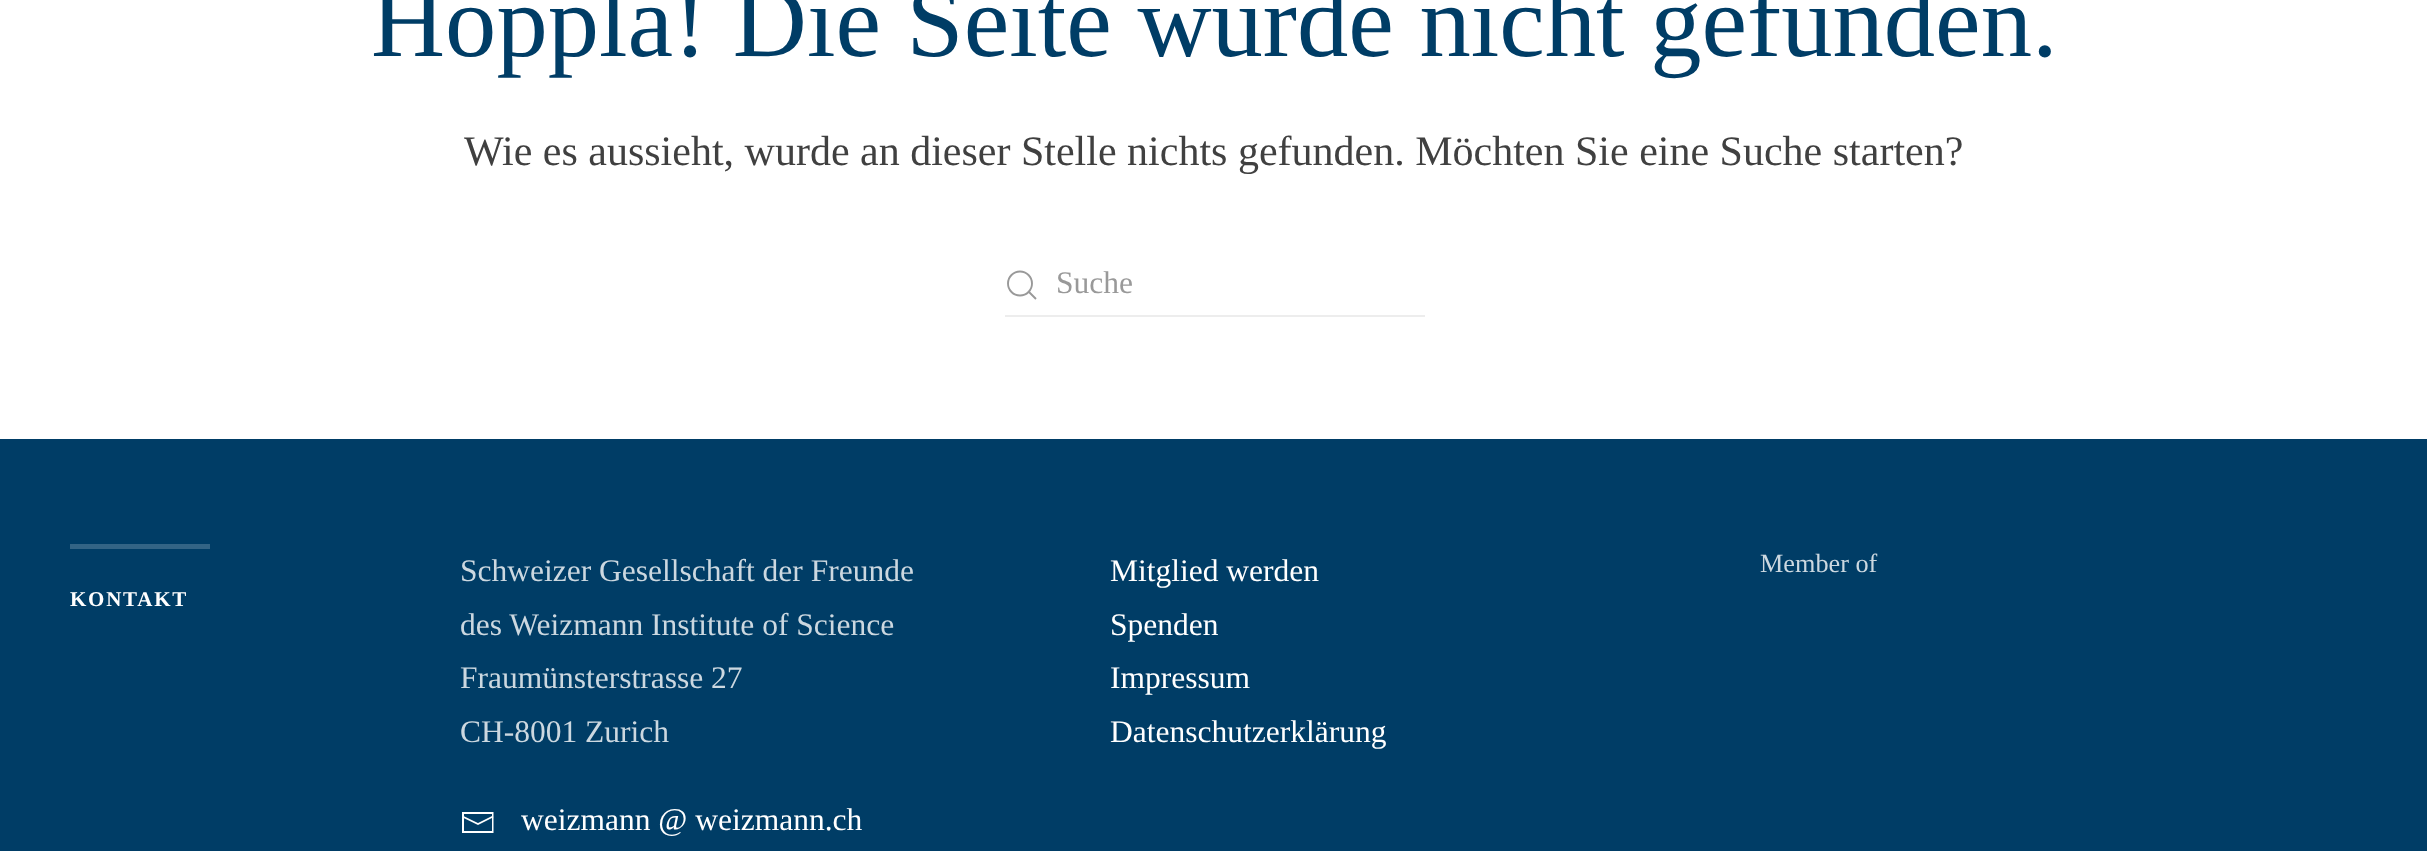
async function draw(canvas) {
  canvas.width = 2427;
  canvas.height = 851;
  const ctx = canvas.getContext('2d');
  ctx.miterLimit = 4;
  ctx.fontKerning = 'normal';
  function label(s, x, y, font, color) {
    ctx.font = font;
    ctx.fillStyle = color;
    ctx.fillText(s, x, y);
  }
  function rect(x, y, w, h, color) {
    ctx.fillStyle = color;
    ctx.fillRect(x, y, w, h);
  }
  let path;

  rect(0, 0, 2427, 851, '#fff');
  label('Hoppla! Die Seite wurde nicht gefunden.', 371, 56, '102.6px Liberation Serif', '#003d66');
  label('Wie es aussieht, wurde an dieser Stelle nichts gefunden. Möchten Sie eine Suche starten?', 464, 165, '42px Liberation Serif', '#404040');
  ctx.beginPath();
  ctx.arc(1020, 283.5, 12, 0, 2 * Math.PI);
  ctx.strokeStyle = '#999';
  ctx.lineWidth = 1.9;
  ctx.stroke();
  path = new Path2D('M1029 292L1036 299Z');
  ctx.stroke(path);
  rect(1005, 315, 420, 2, '#ededed');
  label('Suche', 1056, 293, '31.5px Liberation Serif', '#999');
  rect(0, 439, 2427, 412, '#003d66');
  rect(70, 544, 140, 5, '#336485');
  ctx.letterSpacing = '1.75px';
  label('KONTAKT', 70, 606, 'bold 21px Liberation Serif', '#fff');
  ctx.letterSpacing = '0px';
  label('Schweizer Gesellschaft der Freunde', 460, 581, '31.5px Liberation Serif', '#ccd8e0');
  label('des Weizmann Institute of Science', 460, 635, '31.5px Liberation Serif', '#ccd8e0');
  label('Fraumünsterstrasse 27', 460, 688, '31.5px Liberation Serif', '#ccd8e0');
  label('CH-8001 Zurich', 460, 742, '31.5px Liberation Serif', '#ccd8e0');
  path = new Path2D('M462.5 816.5L478 824L493 816.5');
  ctx.strokeStyle = '#fff';
  ctx.lineWidth = 1.8;
  ctx.stroke(path);
  ctx.fillStyle = '#fff';
  path = new Path2D('M462 812V833H493.5V812ZM492 831H464V814H492Z');
  ctx.fill(path);
  label('weizmann @ weizmann.ch', 521, 830, '31.5px Liberation Serif', '#fff');
  label('Mitglied werden', 1110, 581, '31.5px Liberation Serif', '#fff');
  label('Spenden', 1110, 635, '31.5px Liberation Serif', '#fff');
  label('Impressum', 1110, 688, '31.5px Liberation Serif', '#fff');
  label('Datenschutzerklärung', 1110, 742, '31.5px Liberation Serif', '#fff');
  label('Member of', 1760, 572, '26.25px Liberation Serif', '#ccd8e0');
}

draw(document.querySelector('canvas'));
